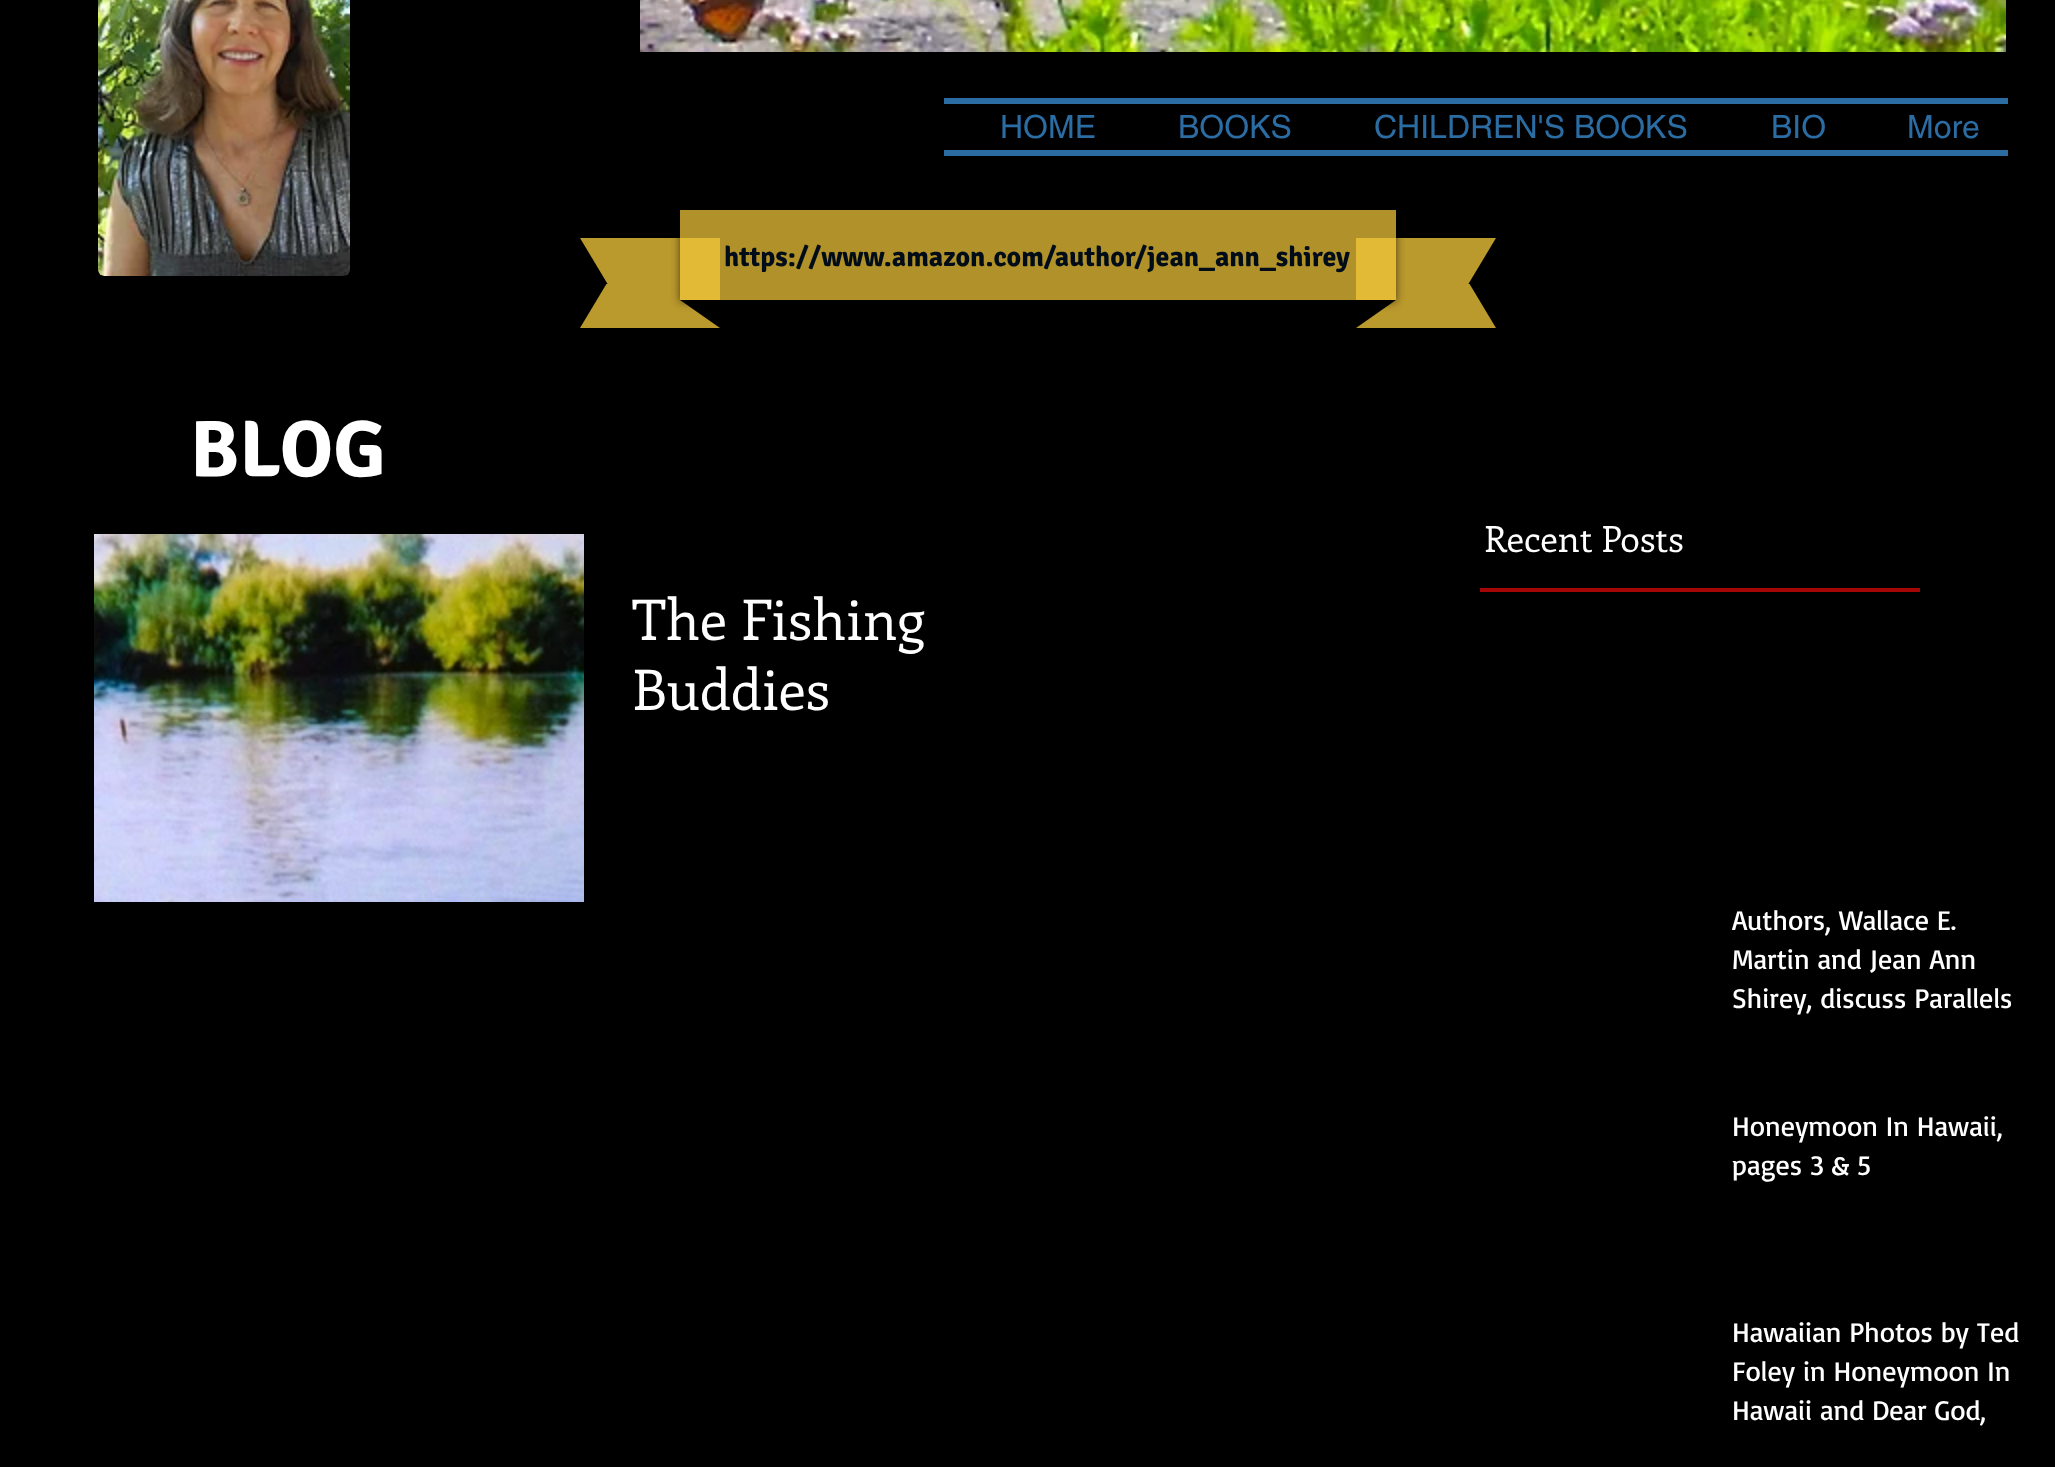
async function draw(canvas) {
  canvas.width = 2055;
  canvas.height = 1467;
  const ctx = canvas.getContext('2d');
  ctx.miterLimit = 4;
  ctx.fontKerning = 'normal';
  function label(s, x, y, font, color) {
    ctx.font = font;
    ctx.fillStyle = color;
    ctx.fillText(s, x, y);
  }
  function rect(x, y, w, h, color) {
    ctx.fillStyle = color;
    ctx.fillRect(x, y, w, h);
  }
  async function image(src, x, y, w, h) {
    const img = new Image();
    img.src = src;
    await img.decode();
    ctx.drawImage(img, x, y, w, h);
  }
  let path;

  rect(0, 0, 2055, 1467, '#000');
  await image('assets/img1.png', 98, 0, 252, 276);
  await image('assets/img2.png', 640, 0, 1366, 52);
  rect(944, 98, 1064, 6, '#2b6ca3');
  rect(944, 150, 1064, 6, '#2b6ca3');
  label('HOME', 1000, 138, '32px helvetica', '#2b6ca3');
  label('BOOKS', 1178, 138, '32px helvetica', '#2b6ca3');
  label('CHILDREN\'S BOOKS', 1374, 138, '32px helvetica', '#2b6ca3');
  label('BIO', 1771, 138, '32px helvetica', '#2b6ca3');
  label('More', 1907, 138, '32px helvetica', '#2b6ca3');
  ctx.save();
  ctx.beginPath();
  ctx.rect(580, 238, 916, 46);
  ctx.clip();
  ctx.fillStyle = '#ba992d';
  path = new Path2D('M580 238H720V438H700Z');
  ctx.fill(path);
  path = new Path2D('M1356 238H1496L1376 438H1356Z');
  ctx.fill(path);
  ctx.restore();
  ctx.save();
  ctx.beginPath();
  ctx.rect(580, 284, 916, 44);
  ctx.clip();
  ctx.fillStyle = '#ba992d';
  path = new Path2D('M720 328H580L700 128H720Z');
  ctx.fill(path);
  path = new Path2D('M1496 328H1356V128H1376Z');
  ctx.fill(path);
  ctx.restore();
  ctx.fillStyle = '#000';
  path = new Path2D('M720 300V328L680 300Z');
  ctx.fill(path);
  path = new Path2D('M1356 328V300H1396Z');
  ctx.fill(path);
  ctx.save();
  path = new Path2D('M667 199H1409V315H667ZM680 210H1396V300H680Z');
  ctx.clip(path, 'evenodd');
  ctx.fillStyle = '#00000099';
  ctx.filter = 'blur(4px)';
  ctx.beginPath();
  ctx.rect(680, 212, 716, 90);
  ctx.fill();
  ctx.filter = 'none';
  ctx.restore();
  rect(680, 210, 716, 90, '#f2c73aba');
  label('https://www.amazon.com/author/jean_ann_shirey', 724, 266, 'bold 28px Signika', '#000c17');
  label('BLOG', 190, 476, 'bold 80px Signika', '#fff');
  label('Recent Posts', 1484, 552, '36px Enriqueta', '#fff');
  rect(1480, 588, 440, 4, '#a40606');
  await image('assets/img3.png', 94, 534, 490, 368);
  label('The Fishing', 632, 640, '56px Enriqueta', '#fff');
  label('Buddies', 632, 710, '56px Enriqueta', '#fff');
  label('Authors, Wallace E.', 1732, 930, '28px Basic', '#fff');
  label('Martin and Jean Ann', 1732, 969, '28px Basic', '#fff');
  label('Shirey, discuss Parallels', 1732, 1008, '28px Basic', '#fff');
  label('Honeymoon In Hawaii,', 1732, 1136, '28px Basic', '#fff');
  label('pages 3 & 5', 1732, 1175, '28px Basic', '#fff');
  label('Hawaiian Photos by Ted', 1732, 1342, '28px Basic', '#fff');
  label('Foley in Honeymoon In', 1732, 1381, '28px Basic', '#fff');
  label('Hawaii and Dear God,', 1732, 1420, '28px Basic', '#fff');
}

draw(document.querySelector('canvas'));
